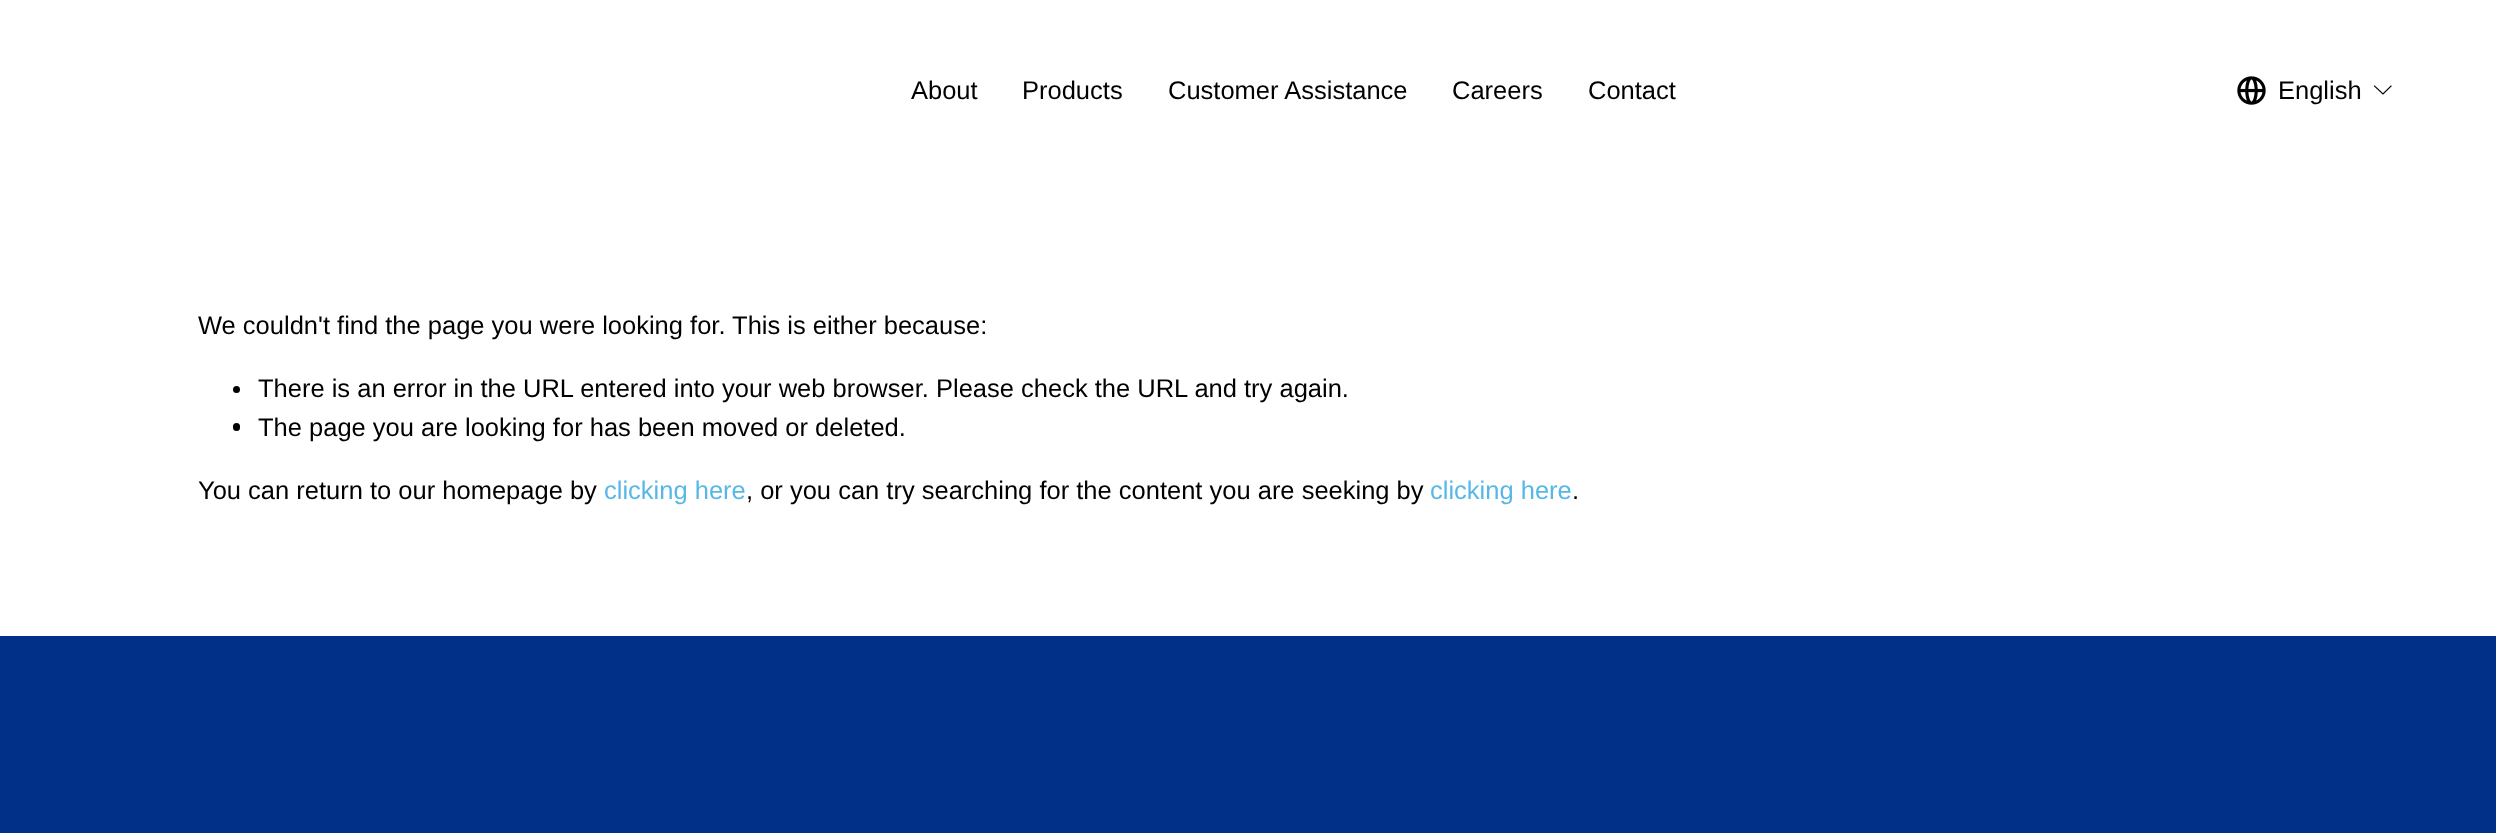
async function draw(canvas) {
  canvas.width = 2496;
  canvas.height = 833;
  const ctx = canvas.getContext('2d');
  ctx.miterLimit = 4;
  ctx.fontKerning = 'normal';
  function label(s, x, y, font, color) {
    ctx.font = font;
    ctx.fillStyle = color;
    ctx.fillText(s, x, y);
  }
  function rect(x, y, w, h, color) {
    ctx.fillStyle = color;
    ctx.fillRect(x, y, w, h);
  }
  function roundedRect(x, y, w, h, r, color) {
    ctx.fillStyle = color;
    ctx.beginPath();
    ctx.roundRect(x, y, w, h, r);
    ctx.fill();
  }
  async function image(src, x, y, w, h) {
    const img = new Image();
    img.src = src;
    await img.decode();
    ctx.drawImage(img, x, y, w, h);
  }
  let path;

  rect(0, 0, 2496, 833, '#fff');
  label('About', 911, 99, '25.5px Liberation Sans', '#000');
  label('Products', 1022, 99, '25.5px Liberation Sans', '#000');
  label('Customer Assistance', 1168, 99, '25.5px Liberation Sans', '#000');
  label('Careers', 1452, 99, '25.5px Liberation Sans', '#000');
  label('Contact', 1588, 99, '25.5px Liberation Sans', '#000');
  await image('assets/img1.png', 2237, 76, 29, 29);
  label('English', 2278, 99, '25.5px Liberation Sans', '#000');
  path = new Path2D('M2391 86L2383 94L2374.5 86');
  ctx.strokeStyle = '#000';
  ctx.lineWidth = 1.2;
  ctx.lineCap = 'square';
  ctx.stroke(path);
  label('We couldn\'t find the page you were looking for. This is either because:', 198, 334, '25.5px Liberation Sans', '#000');
  ctx.beginPath();
  ctx.arc(236.5, 389.5, 3.5, 0, 2 * Math.PI);
  ctx.fill();
  label('There is an error in the URL entered into your web browser. Please check the URL and try again.', 258, 397, '25.5px Liberation Sans', '#000');
  roundedRect(233, 423, 7, 8, 3.5, '#000');
  label('The page you are looking for has been moved or deleted.', 258, 436, '25.5px Liberation Sans', '#000');
  label('You can return to our homepage by', 198, 499, '25.5px Liberation Sans', '#000');
  label('clicking here', 604, 499, '25.5px Liberation Sans', '#57b8e8');
  label(', or you can try searching for the content you are seeking by', 746, 499, '25.5px Liberation Sans', '#000');
  label('clicking here', 1430, 499, '25.5px Liberation Sans', '#57b8e8');
  label('.', 1572, 499, '25.5px Liberation Sans', '#000');
  rect(0, 636, 2496, 197, '#003087');
}

draw(document.querySelector('canvas'));
